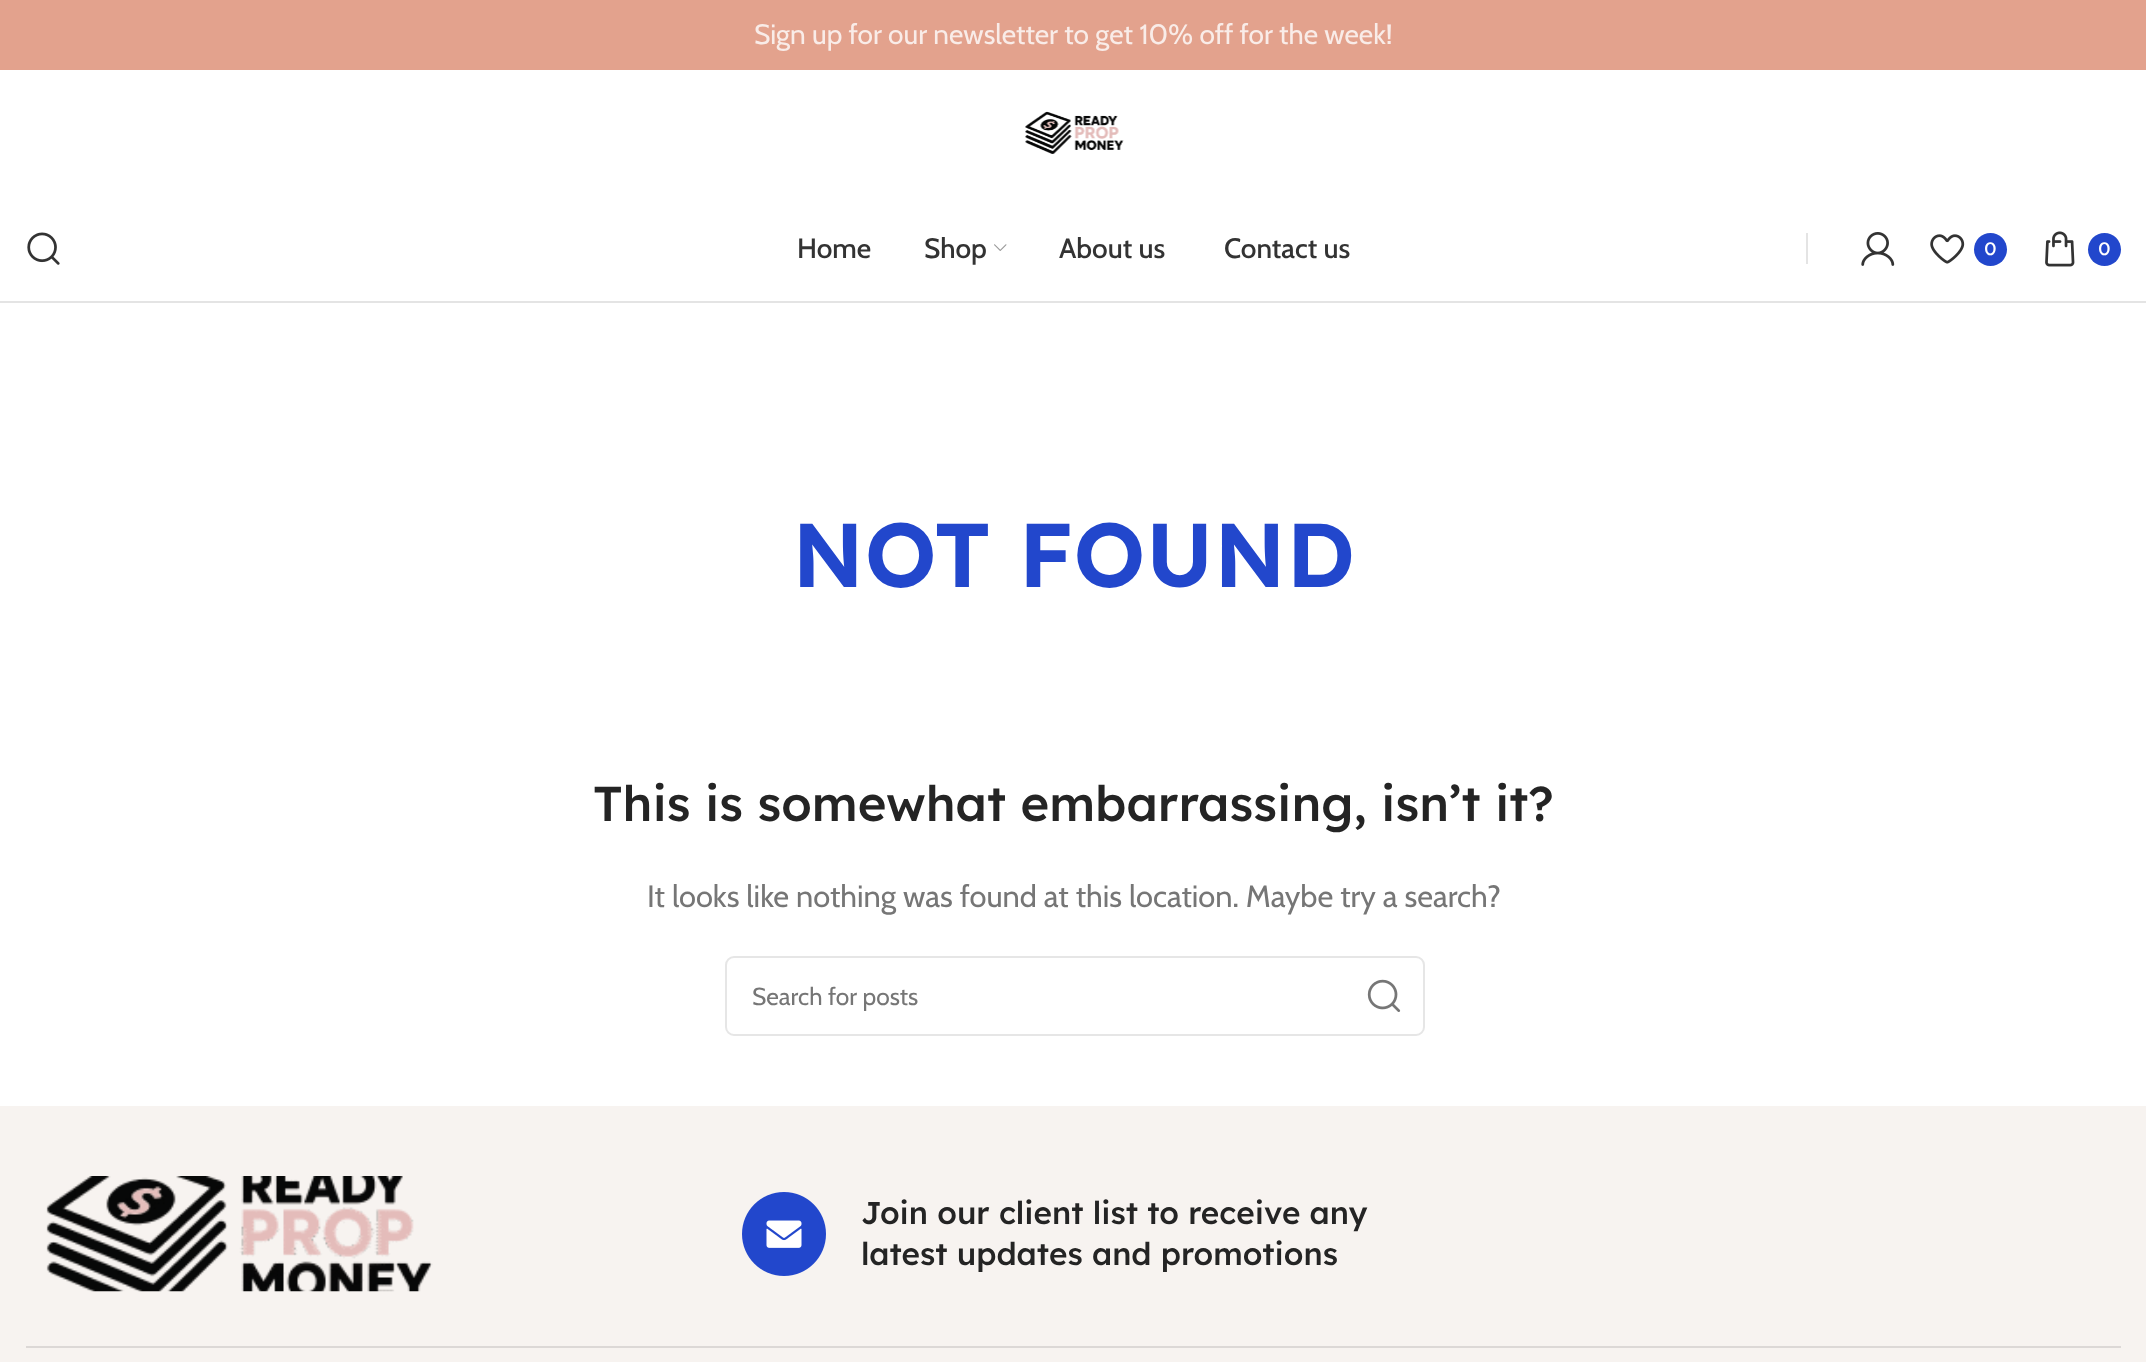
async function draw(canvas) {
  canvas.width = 2146;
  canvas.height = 1362;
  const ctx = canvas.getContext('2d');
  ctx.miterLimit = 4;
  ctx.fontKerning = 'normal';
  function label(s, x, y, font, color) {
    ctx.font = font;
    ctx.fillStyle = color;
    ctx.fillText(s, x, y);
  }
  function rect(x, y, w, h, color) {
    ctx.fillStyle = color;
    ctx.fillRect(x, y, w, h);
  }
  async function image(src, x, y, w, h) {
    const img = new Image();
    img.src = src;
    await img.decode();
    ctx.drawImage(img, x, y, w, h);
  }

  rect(0, 0, 2146, 1362, '#fff');
  rect(0, 0, 2146, 70, '#e3a28d');
  label('Sign up for our newsletter to get 10% off for the week!', 754, 44, '28px Cabin', '#f9ece8');
  await image('assets/img1.png', 1025, 111, 99, 43);
  rect(0, 301, 2146, 2, '#e4e4e4');
  await image('assets/img2.png', 27, 232, 33, 33);
  label('Home', 797, 258, '500 28px Cabin', '#333');
  label('Shop', 924, 258, '500 28px Cabin', '#333');
  await image('assets/img3.png', 994, 244, 13, 7);
  label('About us', 1059, 258, '500 28px Cabin', '#333');
  label('Contact us', 1224, 258, '500 28px Cabin', '#333');
  rect(1806, 233, 2, 31, '#e4e4e4');
  await image('assets/img4.png', 1861, 232, 34, 34);
  await image('assets/img5.png', 1930, 234, 35, 30);
  ctx.fillStyle = '#2247cc';
  ctx.beginPath();
  ctx.arc(1990.5, 249.5, 16.5, 0, 2 * Math.PI);
  ctx.fill();
  label('0', 1984, 255, '600 18px Cabin', '#fff');
  await image('assets/img6.png', 2045, 231, 30, 36);
  ctx.fillStyle = '#2247cc';
  ctx.beginPath();
  ctx.arc(2104.5, 249.5, 16.5, 0, 2 * Math.PI);
  ctx.fill();
  label('0', 2098, 255, '600 18px Cabin', '#fff');
  label('NOT FOUND', 792, 587, '600 90.25px Lexend', '#2247cc');
  label('This is somewhat embarrassing, isn’t it?', 593, 821, '500 49px Lexend', '#242424');
  label('It looks like nothing was found at this location. Maybe try a search?', 647, 907, '30.8px Cabin', '#767676');
  ctx.beginPath();
  ctx.roundRect(726, 957, 698, 78, 8);
  ctx.strokeStyle = '#e6e6e6';
  ctx.lineWidth = 2;
  ctx.stroke();
  label('Search for posts', 752, 1005, '24.5px Cabin', '#767676');
  await image('assets/img7.png', 1367, 979, 34, 33);
  rect(0, 1106, 2146, 256, '#f7f3f0');
  await image('assets/img8.png', 46, 1176, 387, 116);
  await image('assets/img9.png', 742, 1192, 84, 84);
  label('Join our client list to receive any', 861, 1224, '500 31.5px Lexend', '#242424');
  label('latest updates and promotions', 861, 1265, '500 31.5px Lexend', '#242424');
  rect(26, 1346, 2095, 2, '#dcd8d6');
}

draw(document.querySelector('canvas'));
